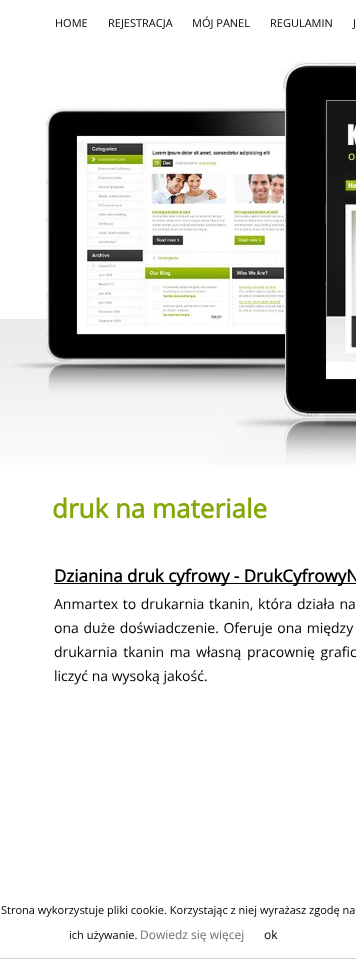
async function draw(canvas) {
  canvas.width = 356;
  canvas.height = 959;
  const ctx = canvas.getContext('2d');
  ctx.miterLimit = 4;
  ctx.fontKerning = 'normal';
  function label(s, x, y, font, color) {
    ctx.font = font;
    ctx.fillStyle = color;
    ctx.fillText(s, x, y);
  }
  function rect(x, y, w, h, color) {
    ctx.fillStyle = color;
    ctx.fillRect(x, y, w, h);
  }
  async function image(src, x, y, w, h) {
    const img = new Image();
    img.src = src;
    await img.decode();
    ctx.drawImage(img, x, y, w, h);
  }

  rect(0, 0, 356, 959, '#fff');
  label('HOME', 55, 27, '11px Open Sans', '#000');
  label('REJESTRACJA', 108, 27, '11px Open Sans', '#000');
  label('MÓJ PANEL', 192, 27, '11px Open Sans', '#000');
  label('REGULAMIN', 270, 27, '11px Open Sans', '#000');
  label('J', 353, 27, '11px Open Sans', '#000');
  await image('assets/img1.png', 0, 60, 356, 405);
  label('druk na materiale', 52, 518, 'bold 26px Open Sans', '#84a808');
  rect(54, 583, 302, 1, '#000');
  label('Dzianina druk cyfrowy - DrukCyfrowyN', 54, 582, 'bold 17px Open Sans', '#000');
  ctx.wordSpacing = '1px';
  label('Anmartex to drukarnia tkanin, która działa na', 54, 609, '14px Open Sans', '#000');
  label('ona duże doświadczenie. Oferuje ona między', 54, 633, '14px Open Sans', '#000');
  ctx.wordSpacing = '2px';
  label('drukarnia tkanin ma własną pracownię grafic', 54, 657, '14px Open Sans', '#000');
  ctx.wordSpacing = '0px';
  label('liczyć na wysoką jakość.', 54, 681, '14px Open Sans', '#000');
  rect(0, 958, 356, 1, '#d3d0d0');
  label('Strona wykorzystuje pliki cookie. Korzystając z niej wyrażasz zgodę na', 1, 914, '11px Open Sans', '#000');
  label('ich używanie.', 69, 939, '11px Open Sans', '#000');
  label('Dowiedz się więcej', 140, 939, '12px Open Sans', '#6f6f6f');
  label('ok', 264, 939, '12px Open Sans', '#000');
}

draw(document.querySelector('canvas'));
